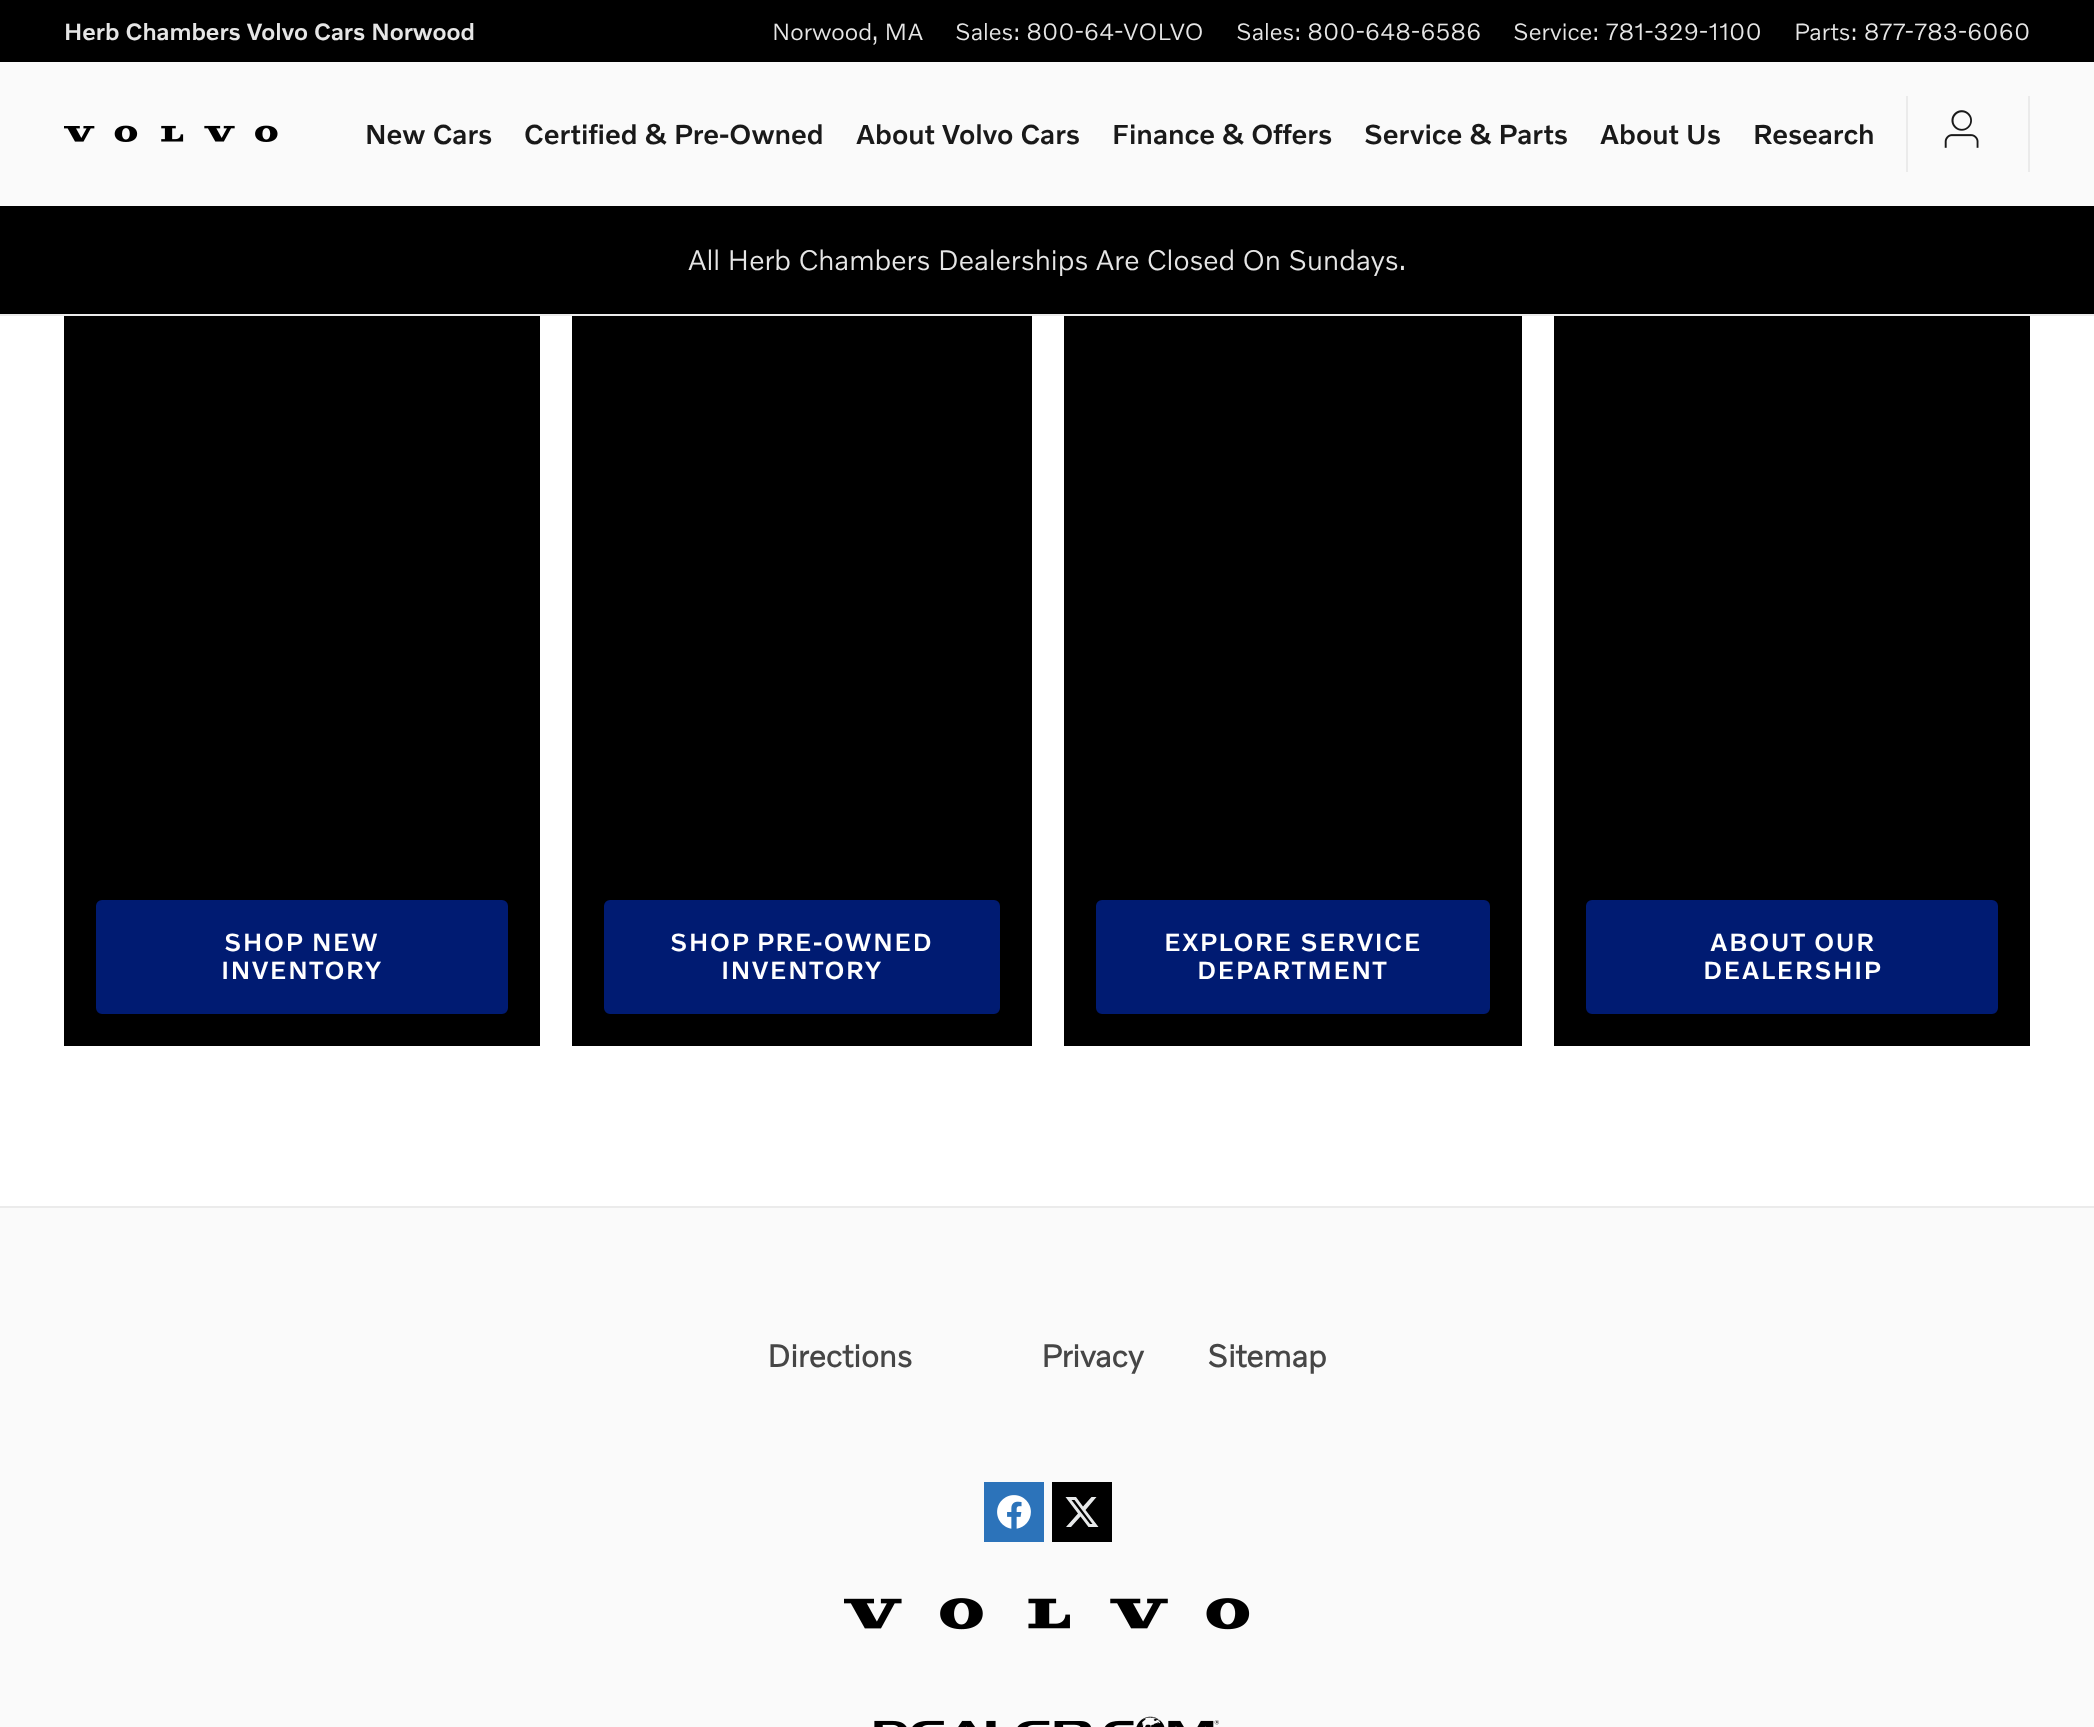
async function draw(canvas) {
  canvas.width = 2094;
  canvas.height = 1727;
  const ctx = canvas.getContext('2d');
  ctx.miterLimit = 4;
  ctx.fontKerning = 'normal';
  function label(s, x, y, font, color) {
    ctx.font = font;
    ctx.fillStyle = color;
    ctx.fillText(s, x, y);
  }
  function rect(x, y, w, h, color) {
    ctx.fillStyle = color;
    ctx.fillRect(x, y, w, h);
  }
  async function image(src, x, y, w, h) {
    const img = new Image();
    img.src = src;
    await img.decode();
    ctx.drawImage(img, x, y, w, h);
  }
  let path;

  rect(0, 0, 2094, 1727, '#fff');
  rect(0, 62, 2094, 144, '#fafafa');
  rect(0, 314, 2094, 2, '#ebebeb');
  rect(0, 0, 2094, 62, '#000');
  label('Herb Chambers Volvo Cars Norwood', 64, 40, '500 24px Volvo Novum', '#e6e6e6');
  label('Norwood, MA', 772, 40, '300 24px Volvo Novum', '#e6e6e6');
  label('Sales: 800-64-VOLVO', 955, 40, '300 24px Volvo Novum', '#e6e6e6');
  label('Sales: 800-648-6586', 1236, 40, '300 24px Volvo Novum', '#e6e6e6');
  label('Service: 781-329-1100', 1513, 40, '300 24px Volvo Novum', '#e6e6e6');
  label('Parts: 877-783-6060', 1794, 40, '300 24px Volvo Novum', '#e6e6e6');
  await image('assets/img1.png', 64, 125, 214, 17);
  label('New Cars', 365, 144, '500 28px Volvo Novum', '#191919');
  label('Certified & Pre-Owned', 524, 144, '500 28px Volvo Novum', '#191919');
  label('About Volvo Cars', 856, 144, '500 28px Volvo Novum', '#191919');
  label('Finance & Offers', 1112, 144, '500 28px Volvo Novum', '#191919');
  label('Service & Parts', 1364, 144, '500 28px Volvo Novum', '#191919');
  label('About Us', 1600, 144, '500 28px Volvo Novum', '#191919');
  label('Research', 1753, 144, '500 28px Volvo Novum', '#191919');
  rect(1906, 96, 2, 76, '#ebebeb');
  await image('assets/img2.png', 1944, 110, 35, 38);
  rect(2028, 96, 2, 76, '#ebebeb');
  rect(0, 206, 2094, 108, '#000');
  label('All Herb Chambers Dealerships Are Closed On Sundays.', 688, 270, '300 28.8px Volvo Novum', '#e6e6e6');
  rect(64, 316, 476, 730, '#000');
  ctx.fillStyle = '#001b72';
  ctx.beginPath();
  ctx.roundRect(97, 901, 410, 112, 5);
  ctx.fill();
  ctx.strokeStyle = '#001b72';
  ctx.lineWidth = 2;
  ctx.stroke();
  ctx.letterSpacing = '1.25px';
  label('SHOP NEW', 224, 951, '500 25.25px Volvo Novum', '#fff');
  label('INVENTORY', 221, 979, '500 25.25px Volvo Novum', '#fff');
  rect(572, 316, 460, 730, '#000');
  ctx.fillStyle = '#001b72';
  ctx.beginPath();
  ctx.roundRect(605, 901, 394, 112, 5);
  ctx.fill();
  ctx.stroke();
  ctx.wordSpacing = '-1px';
  label('SHOP PRE-OWNED', 670, 951, '500 25.25px Volvo Novum', '#fff');
  ctx.wordSpacing = '0px';
  label('INVENTORY', 721, 979, '500 25.25px Volvo Novum', '#fff');
  rect(1064, 316, 458, 730, '#000');
  ctx.fillStyle = '#001b72';
  ctx.beginPath();
  ctx.roundRect(1097, 901, 392, 112, 5);
  ctx.fill();
  ctx.stroke();
  label('EXPLORE SERVICE', 1164, 951, '500 25.25px Volvo Novum', '#fff');
  label('DEPARTMENT', 1197, 979, '500 25.25px Volvo Novum', '#fff');
  rect(1554, 316, 476, 730, '#000');
  ctx.fillStyle = '#001b72';
  ctx.beginPath();
  ctx.roundRect(1587, 901, 410, 112, 5);
  ctx.fill();
  ctx.stroke();
  label('ABOUT OUR', 1710, 951, '500 25.25px Volvo Novum', '#fff');
  label('DEALERSHIP', 1703, 979, '500 25.25px Volvo Novum', '#fff');
  rect(0, 1208, 2094, 519, '#fafafa');
  rect(0, 1206, 2094, 2, '#ebebeb');
  ctx.letterSpacing = '0px';
  label('Directions', 767, 1367, 'bold 32px Volvo Novum', '#464646');
  label('Privacy', 1041, 1367, 'bold 32px Volvo Novum', '#464646');
  label('Sitemap', 1207, 1367, 'bold 32px Volvo Novum', '#464646');
  await image('assets/img3.png', 984, 1482, 60, 60);
  rect(1052, 1482, 60, 60, '#000');
  ctx.fillStyle = '#e7e9ea';
  path = new Path2D('M1091.5 1497H1096.5L1085.5 1510L1098.5 1527H1088.5L1080.5 1516.5L1071 1527H1066L1078 1513.5L1065.5 1497H1076L1083 1506.5ZM1090 1524H1092.5L1074.5 1500H1071.5Z');
  ctx.fill(path);
  await image('assets/img4.png', 844, 1598, 406, 32);
  await image('assets/img5.png', 874, 1716, 345, 11);
}

draw(document.querySelector('canvas'));
